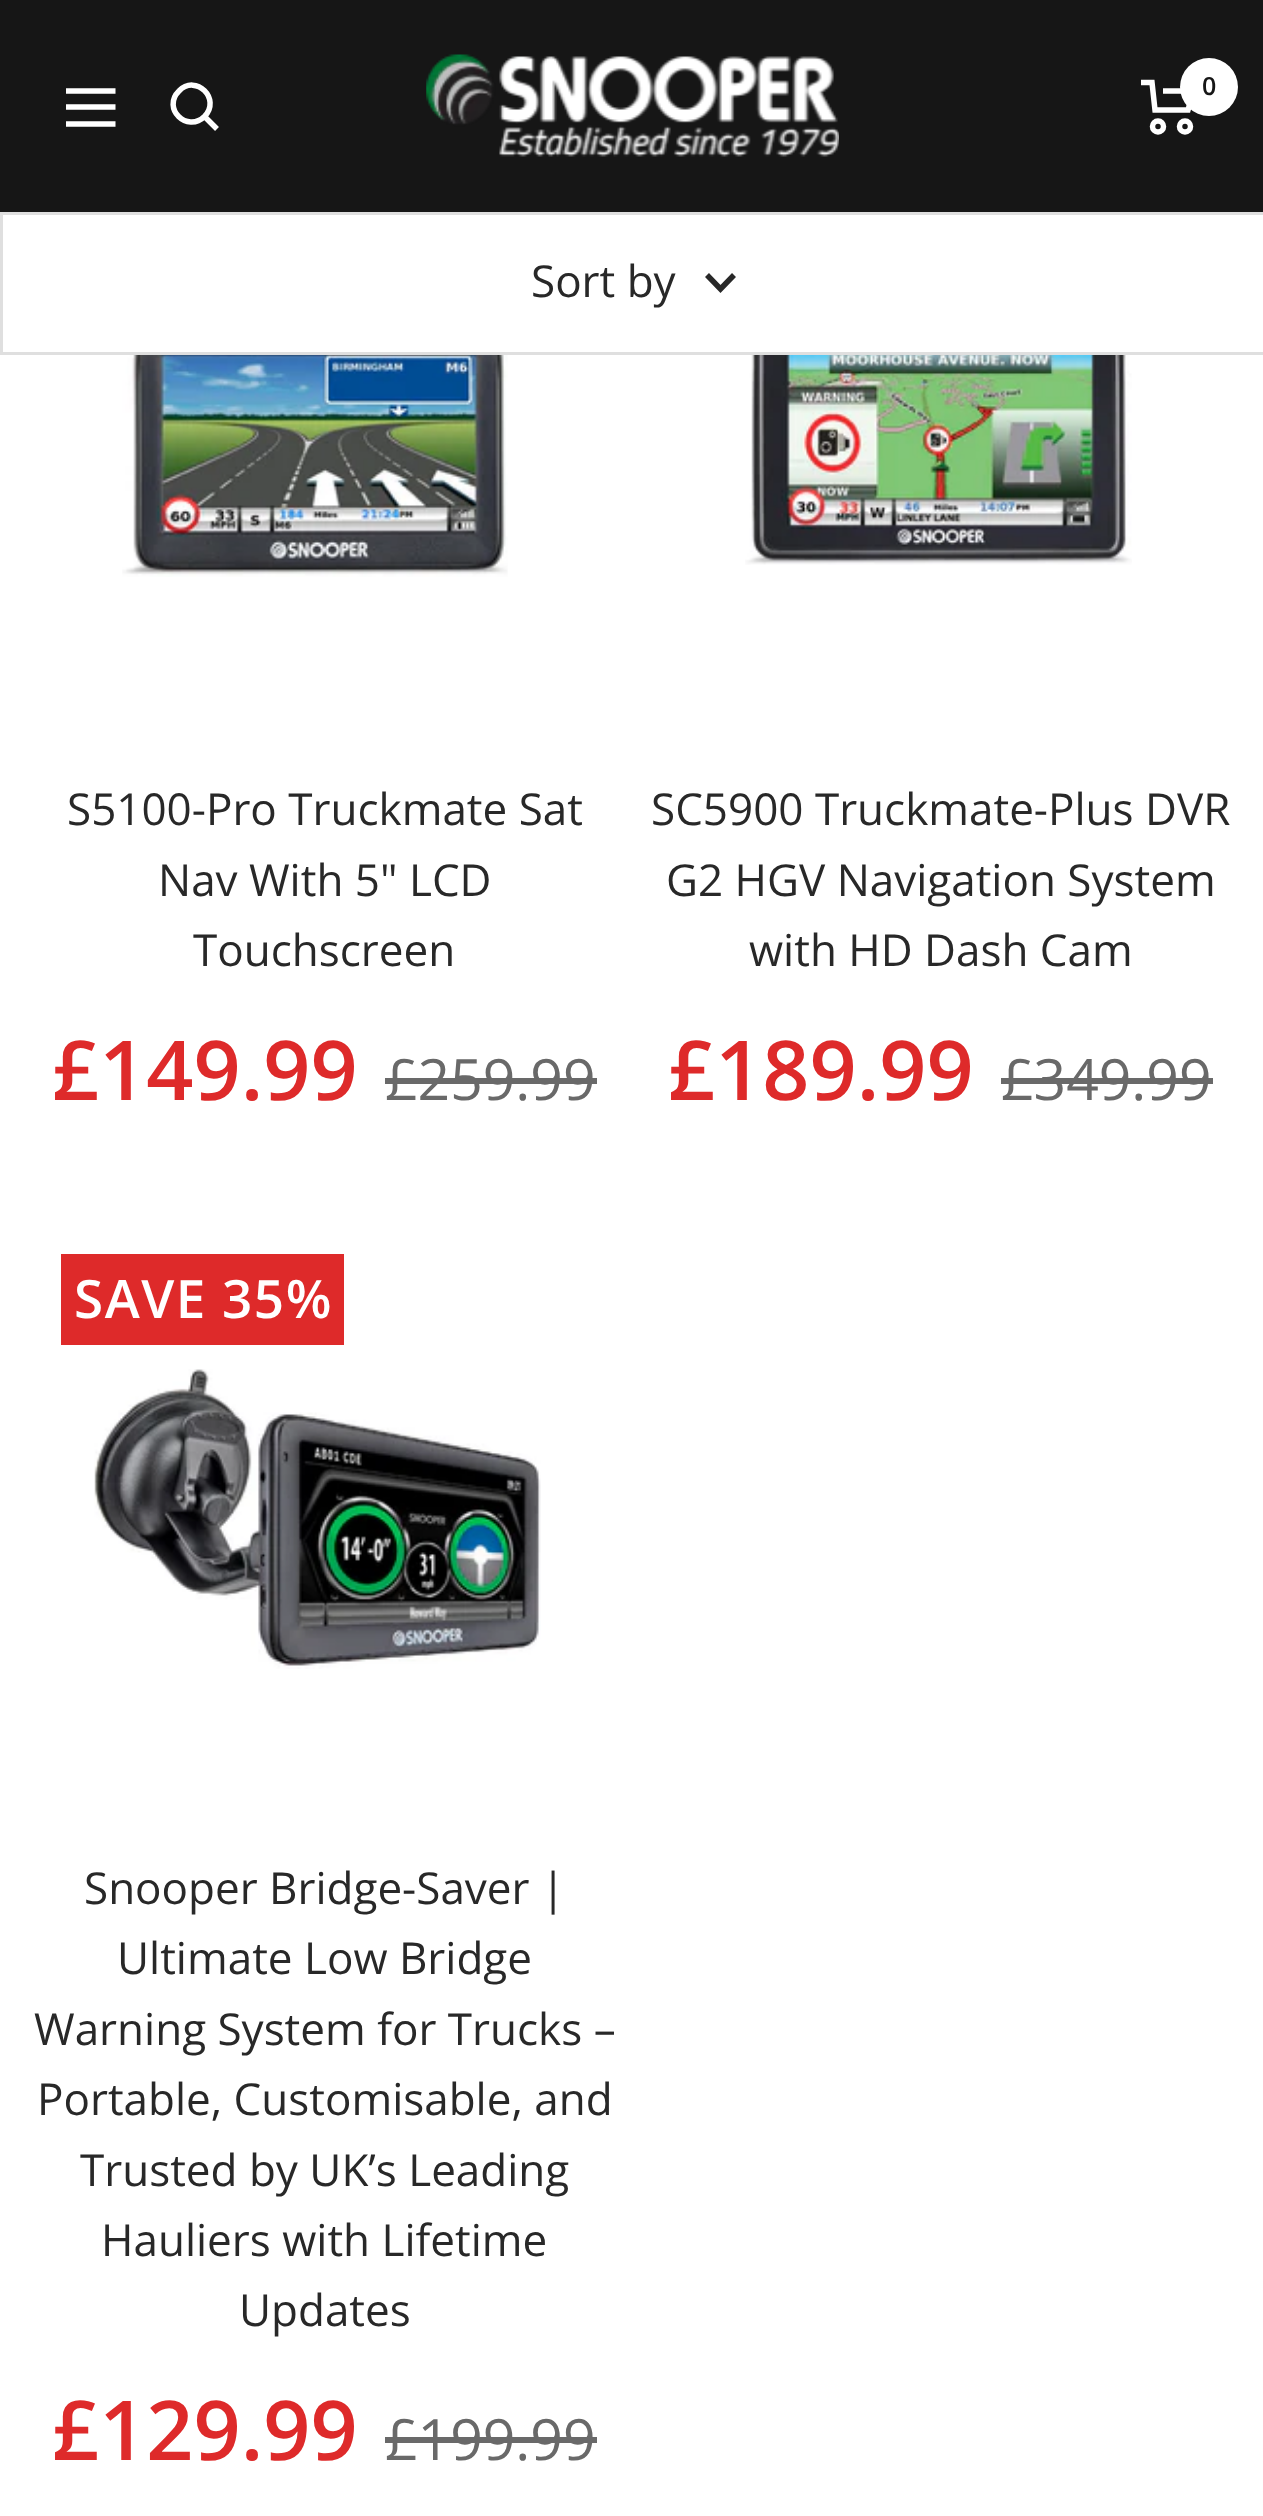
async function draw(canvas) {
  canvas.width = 1263;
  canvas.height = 2516;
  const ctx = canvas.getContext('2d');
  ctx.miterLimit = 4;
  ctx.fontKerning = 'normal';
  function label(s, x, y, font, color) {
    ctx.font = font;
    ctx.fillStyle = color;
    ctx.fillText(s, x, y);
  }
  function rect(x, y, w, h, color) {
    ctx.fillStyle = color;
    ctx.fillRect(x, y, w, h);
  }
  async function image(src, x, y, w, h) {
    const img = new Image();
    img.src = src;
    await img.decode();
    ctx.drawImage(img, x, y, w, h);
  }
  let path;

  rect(0, 0, 1263, 2516, '#fff');
  rect(0, 0, 1263, 212, '#161616');
  path = new Path2D('M66 91H115.5M66 124H115.5ZM66 107H115.5Z');
  ctx.strokeStyle = '#fff';
  ctx.lineWidth = 5.5;
  ctx.stroke(path);
  path = new Path2D('M204.5 116.5C221.5 99 196 73.5 179 91C161.5 108 187 133.5 204.5 116.5ZM204.5 116.5L217 129');
  ctx.stroke(path);
  await image('assets/img1.png', 426, 54, 413, 103);
  path = new Path2D('M1141 82.5H1152L1155 110H1188L1193.5 91H1163');
  ctx.stroke(path);
  ctx.beginPath();
  ctx.arc(1158, 126.5, 5.5, 0, 2 * Math.PI);
  ctx.stroke();
  ctx.beginPath();
  ctx.arc(1185, 126.5, 5.5, 0, 2 * Math.PI);
  ctx.stroke();
  ctx.fillStyle = '#fff';
  ctx.beginPath();
  ctx.arc(1209, 87, 29, 0, 2 * Math.PI);
  ctx.fill();
  label('0', 1202, 95, '600 25px Open Sans', '#161616');
  rect(0, 212, 1263, 3, '#dfdfdf');
  rect(0, 352, 1263, 3, '#dfdfdf');
  rect(0, 212, 3, 143, '#dfdfdf');
  label('Sort by', 531, 297, '44px Open Sans', '#282828');
  path = new Path2D('M707 275L720.5 289L734 275');
  ctx.strokeStyle = '#282828';
  ctx.stroke(path);
  await image('assets/img2.png', 122, 355, 386, 222);
  label('S5100-Pro Truckmate Sat', 67, 825, '44px Open Sans', '#282828');
  label('Nav With 5" LCD', 158, 896, '44px Open Sans', '#282828');
  label('Touchscreen', 193, 966, '44px Open Sans', '#282828');
  label('£149.99', 52, 1100, '600 82.5px Open Sans', '#de2a2a');
  label('£259.99', 385, 1100, '57px Open Sans', '#696969');
  rect(385, 1078, 212, 6, '#696969');
  await image('assets/img3.png', 745, 355, 387, 210);
  label('SC5900 Truckmate-Plus DVR', 651, 825, '44px Open Sans', '#282828');
  label('G2 HGV Navigation System', 666, 896, '44px Open Sans', '#282828');
  label('with HD Dash Cam', 749, 966, '44px Open Sans', '#282828');
  label('£189.99', 668, 1100, '600 82.5px Open Sans', '#de2a2a');
  label('£349.99', 1001, 1100, '57px Open Sans', '#696969');
  rect(1001, 1078, 212, 6, '#696969');
  rect(61, 1254, 283, 91, '#de2a2a');
  ctx.letterSpacing = '1.5px';
  label('SAVE 35%', 74, 1318, '600 53px Open Sans', '#fff');
  await image('assets/img4.png', 94, 1369, 447, 300);
  ctx.letterSpacing = '0px';
  label('Snooper Bridge-Saver |', 84, 1904, '44px Open Sans', '#282828');
  label('Ultimate Low Bridge', 117, 1974, '44px Open Sans', '#282828');
  label('Warning System for Trucks –', 34, 2045, '44px Open Sans', '#282828');
  label('Portable, Customisable, and', 37, 2115, '44px Open Sans', '#282828');
  label('Trusted by UK’s Leading', 80, 2186, '44px Open Sans', '#282828');
  label('Hauliers with Lifetime', 101, 2256, '44px Open Sans', '#282828');
  label('Updates', 239, 2326, '44px Open Sans', '#282828');
  label('£129.99', 52, 2460, '600 82.5px Open Sans', '#de2a2a');
  label('£199.99', 385, 2460, '57px Open Sans', '#696969');
  rect(385, 2437, 212, 6, '#696969');
}

draw(document.querySelector('canvas'));
